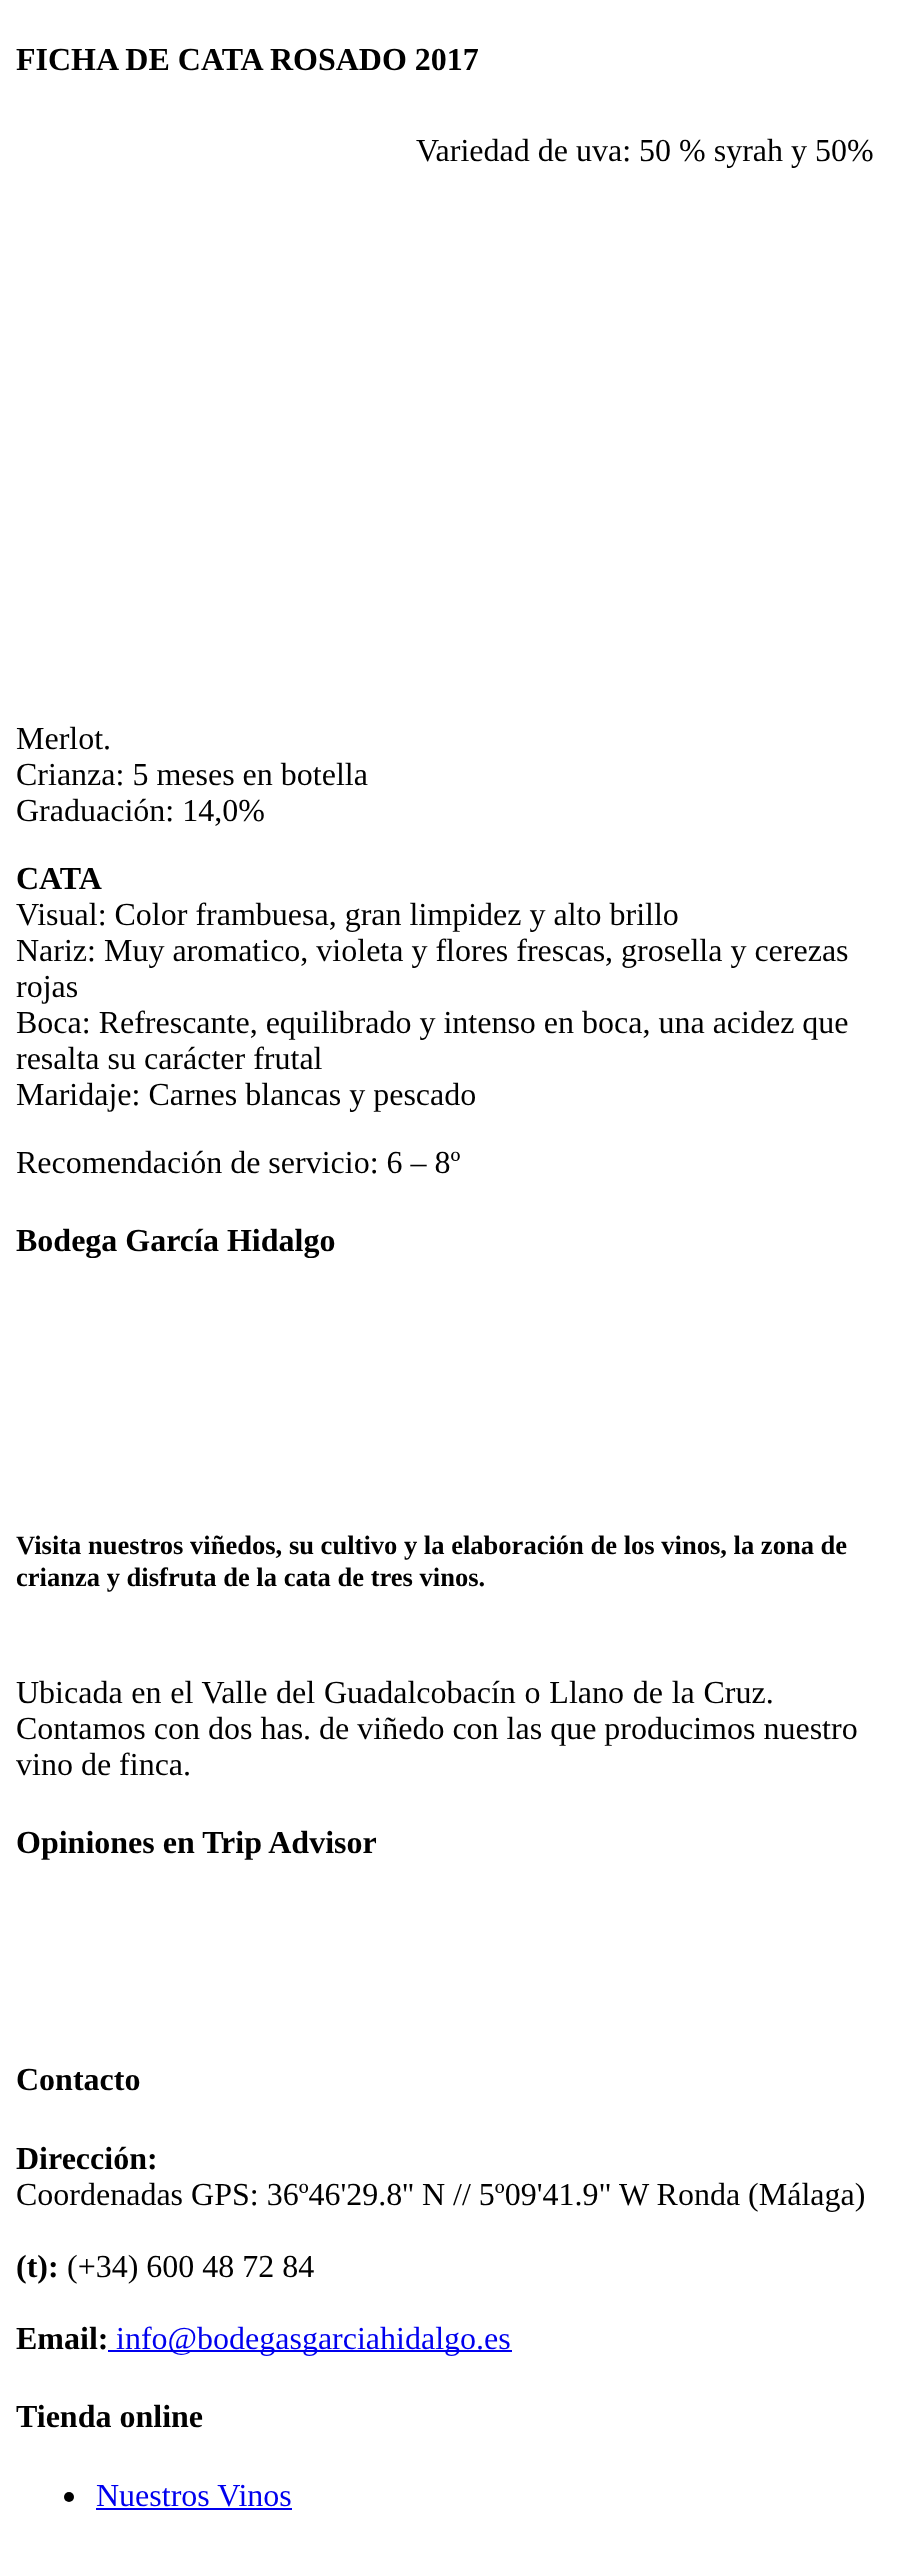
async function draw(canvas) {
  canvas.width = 904;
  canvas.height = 2562;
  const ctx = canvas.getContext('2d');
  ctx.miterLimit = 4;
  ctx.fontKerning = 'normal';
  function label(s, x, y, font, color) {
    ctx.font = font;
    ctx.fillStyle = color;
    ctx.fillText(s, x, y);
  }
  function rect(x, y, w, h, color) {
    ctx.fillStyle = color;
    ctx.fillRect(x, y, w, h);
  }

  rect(0, 0, 904, 2562, '#fff');
  label('FICHA DE CATA ROSADO 2017', 16, 70, 'bold 32px Liberation Serif', '#000');
  label('Variedad de uva: 50 % syrah y 50%', 416, 161, '32px Liberation Serif', '#000');
  label('Merlot.', 16, 749, '32px Liberation Serif', '#000');
  label('Crianza: 5 meses en botella', 16, 785, '32px Liberation Serif', '#000');
  label('Graduación: 14,0%', 16, 821, '32px Liberation Serif', '#000');
  label('CATA', 16, 889, 'bold 32px Liberation Serif', '#000');
  label('Visual: Color frambuesa, gran limpidez y alto brillo', 16, 925, '32px Liberation Serif', '#000');
  label('Nariz: Muy aromatico, violeta y flores frescas, grosella y cerezas', 16, 961, '32px Liberation Serif', '#000');
  label('rojas', 16, 997, '32px Liberation Serif', '#000');
  label('Boca: Refrescante, equilibrado y intenso en boca, una acidez que', 16, 1033, '32px Liberation Serif', '#000');
  label('resalta su carácter frutal', 16, 1069, '32px Liberation Serif', '#000');
  label('Maridaje: Carnes blancas y pescado', 16, 1105, '32px Liberation Serif', '#000');
  label('Recomendación de servicio: 6 – 8º', 16, 1173, '32px Liberation Serif', '#000');
  label('Bodega García Hidalgo', 16, 1251, 'bold 32px Liberation Serif', '#000');
  label('Visita nuestros viñedos, su cultivo y la elaboración de los vinos, la zona de', 16, 1554, 'bold 26.55px Liberation Serif', '#000');
  label('crianza y disfruta de la cata de tres vinos.', 16, 1586, 'bold 26.55px Liberation Serif', '#000');
  ctx.wordSpacing = '0.75px';
  label('Ubicada en el Valle del Guadalcobacín o Llano de la Cruz.', 16, 1703, '32px Liberation Serif', '#000');
  ctx.wordSpacing = '0px';
  label('Contamos con dos has. de viñedo con las que producimos nuestro', 16, 1739, '32px Liberation Serif', '#000');
  label('vino de finca.', 16, 1775, '32px Liberation Serif', '#000');
  label('Opiniones en Trip Advisor', 16, 1853, 'bold 32px Liberation Serif', '#000');
  label('Contacto', 16, 2090, 'bold 32px Liberation Serif', '#000');
  label('Dirección:', 16, 2169, 'bold 32px Liberation Serif', '#000');
  label('Coordenadas GPS: 36º46\'29.8\'\' N // 5º09\'41.9" W Ronda (Málaga)', 16, 2205, '32px Liberation Serif', '#000');
  label('(t):', 16, 2277, 'bold 32px Liberation Serif', '#000');
  label('(+34) 600 48 72 84', 67, 2277, '32px Liberation Serif', '#000');
  label('Email:', 16, 2349, 'bold 32px Liberation Serif', '#000');
  rect(108, 2350, 404, 2, '#00e');
  label('info@bodegasgarciahidalgo.es', 116, 2349, '32px Liberation Serif', '#00e');
  label('Tienda online', 16, 2427, 'bold 32px Liberation Serif', '#000');
  ctx.beginPath();
  ctx.arc(69, 2497, 5, 0, 2 * Math.PI);
  ctx.fill();
  label('Nuestros Vinos', 96, 2506, '32px Liberation Serif', '#00e');
  rect(96, 2508, 196, 2, '#00e');
}

draw(document.querySelector('canvas'));
